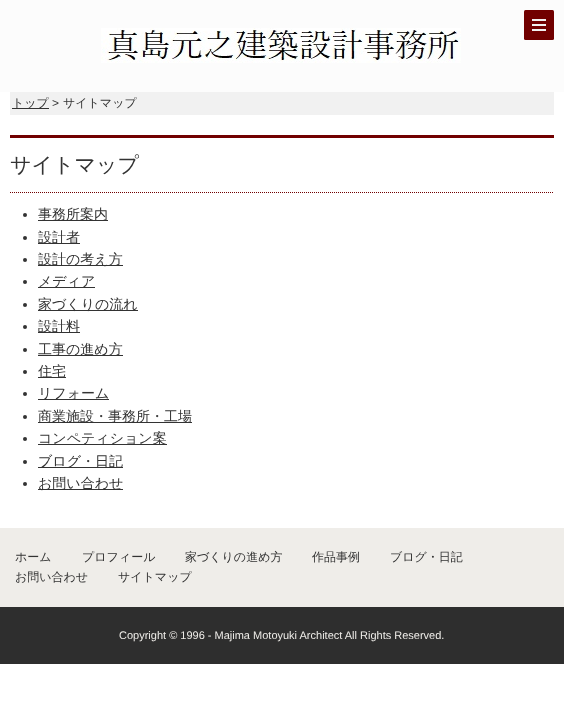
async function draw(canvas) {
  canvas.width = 564;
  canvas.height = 724;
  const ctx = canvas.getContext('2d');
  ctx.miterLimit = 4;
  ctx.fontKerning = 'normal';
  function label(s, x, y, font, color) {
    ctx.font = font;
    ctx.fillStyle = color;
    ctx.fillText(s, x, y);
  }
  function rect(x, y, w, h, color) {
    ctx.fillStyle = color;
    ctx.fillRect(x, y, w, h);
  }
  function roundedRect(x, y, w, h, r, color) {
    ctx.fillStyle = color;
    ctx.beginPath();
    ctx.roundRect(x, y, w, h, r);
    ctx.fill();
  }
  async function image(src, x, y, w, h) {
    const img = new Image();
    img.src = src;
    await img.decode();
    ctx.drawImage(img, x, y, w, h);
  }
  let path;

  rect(0, 0, 564, 724, '#fff');
  rect(0, 0, 564, 92, '#fcfcfc');
  await image('assets/img1.png', 101, 28, 360, 35);
  roundedRect(524, 10, 30, 30, 1.5, '#710000');
  rect(532, 24, 14, 2, '#f1f1f1');
  rect(532, 19, 14, 2, '#f1f1f1');
  rect(532, 29, 14, 2, '#f1f1f1');
  rect(10, 92, 544, 23, '#f1f1f1');
  rect(12, 108, 37, 1, '#333');
  label('トップ', 12, 107, '500 12px WenQuanYi Zen Hei', '#333');
  label('>', 52, 107, '12px Liberation Sans', '#333');
  label('サイトマップ', 63, 107, '500 12px WenQuanYi Zen Hei', '#333');
  rect(10, 135, 544, 3, '#710000');
  path = new Path2D('M10 192.5H554');
  ctx.strokeStyle = '#710000';
  ctx.setLineDash([1, 1]);
  ctx.stroke(path);
  label('サイトマップ', 10, 172, '500 21px WenQuanYi Zen Hei', '#333');
  ctx.beginPath();
  ctx.arc(25, 215, 2, 0, 2 * Math.PI);
  ctx.fill();
  rect(38, 220, 70, 1, '#333');
  label('事務所案内', 38, 219, '500 14px WenQuanYi Zen Hei', '#333');
  ctx.beginPath();
  ctx.arc(25, 238, 2, 0, 2 * Math.PI);
  ctx.fill();
  rect(38, 243, 42, 1, '#333');
  label('設計者', 38, 242, '500 14px WenQuanYi Zen Hei', '#333');
  ctx.beginPath();
  ctx.arc(25, 260, 2, 0, 2 * Math.PI);
  ctx.fill();
  rect(38, 265, 85, 1, '#333');
  label('設計の考え方', 38, 264, '500 14px WenQuanYi Zen Hei', '#333');
  ctx.beginPath();
  ctx.arc(25, 282, 2, 0, 2 * Math.PI);
  ctx.fill();
  rect(38, 287, 57, 1, '#333');
  label('メディア', 38, 286, '500 14px WenQuanYi Zen Hei', '#333');
  ctx.beginPath();
  ctx.arc(25, 305, 2, 0, 2 * Math.PI);
  ctx.fill();
  rect(38, 310, 100, 1, '#333');
  label('家づくりの流れ', 38, 309, '500 14px WenQuanYi Zen Hei', '#333');
  ctx.beginPath();
  ctx.arc(25, 327, 2, 0, 2 * Math.PI);
  ctx.fill();
  rect(38, 332, 42, 1, '#333');
  label('設計料', 38, 331, '500 14px WenQuanYi Zen Hei', '#333');
  ctx.beginPath();
  ctx.arc(25, 350, 2, 0, 2 * Math.PI);
  ctx.fill();
  rect(38, 355, 85, 1, '#333');
  label('工事の進め方', 38, 354, '500 14px WenQuanYi Zen Hei', '#333');
  ctx.beginPath();
  ctx.arc(25, 372, 2, 0, 2 * Math.PI);
  ctx.fill();
  rect(38, 377, 28, 1, '#333');
  label('住宅', 38, 376, '500 14px WenQuanYi Zen Hei', '#333');
  ctx.beginPath();
  ctx.arc(25, 394, 2, 0, 2 * Math.PI);
  ctx.fill();
  rect(38, 399, 71, 1, '#333');
  label('リフォーム', 38, 398, '500 14px WenQuanYi Zen Hei', '#333');
  ctx.beginPath();
  ctx.arc(25, 417, 2, 0, 2 * Math.PI);
  ctx.fill();
  rect(38, 422, 154, 1, '#333');
  label('商業施設・事務所・工場', 38, 421, '500 14px WenQuanYi Zen Hei', '#333');
  ctx.beginPath();
  ctx.arc(25, 439, 2, 0, 2 * Math.PI);
  ctx.fill();
  rect(38, 444, 129, 1, '#333');
  label('コンペティション案', 38, 443, '500 14px WenQuanYi Zen Hei', '#333');
  ctx.beginPath();
  ctx.arc(25, 462, 2, 0, 2 * Math.PI);
  ctx.fill();
  rect(38, 467, 85, 1, '#333');
  label('ブログ・日記', 38, 466, '500 14px WenQuanYi Zen Hei', '#333');
  ctx.beginPath();
  ctx.arc(25, 484, 2, 0, 2 * Math.PI);
  ctx.fill();
  rect(38, 489, 85, 1, '#333');
  label('お問い合わせ', 38, 488, '500 14px WenQuanYi Zen Hei', '#333');
  rect(0, 528, 564, 79, '#efede9');
  label('ホーム', 15, 561, '500 12px WenQuanYi Zen Hei', '#333');
  label('プロフィール', 82, 561, '500 12px WenQuanYi Zen Hei', '#333');
  label('家づくりの進め方', 185, 561, '500 12px WenQuanYi Zen Hei', '#333');
  label('作品事例', 312, 561, '500 12px WenQuanYi Zen Hei', '#333');
  label('ブログ・日記', 390, 561, '500 12px WenQuanYi Zen Hei', '#333');
  label('お問い合わせ', 15, 581, '500 12px WenQuanYi Zen Hei', '#333');
  label('サイトマップ', 118, 581, '500 12px WenQuanYi Zen Hei', '#333');
  rect(0, 607, 564, 57, '#2e2e2e');
  label('Copyright © 1996 - Majima Motoyuki Architect All Rights Reserved.', 119, 639, '11px Liberation Sans', '#efede9');
}

draw(document.querySelector('canvas'));
